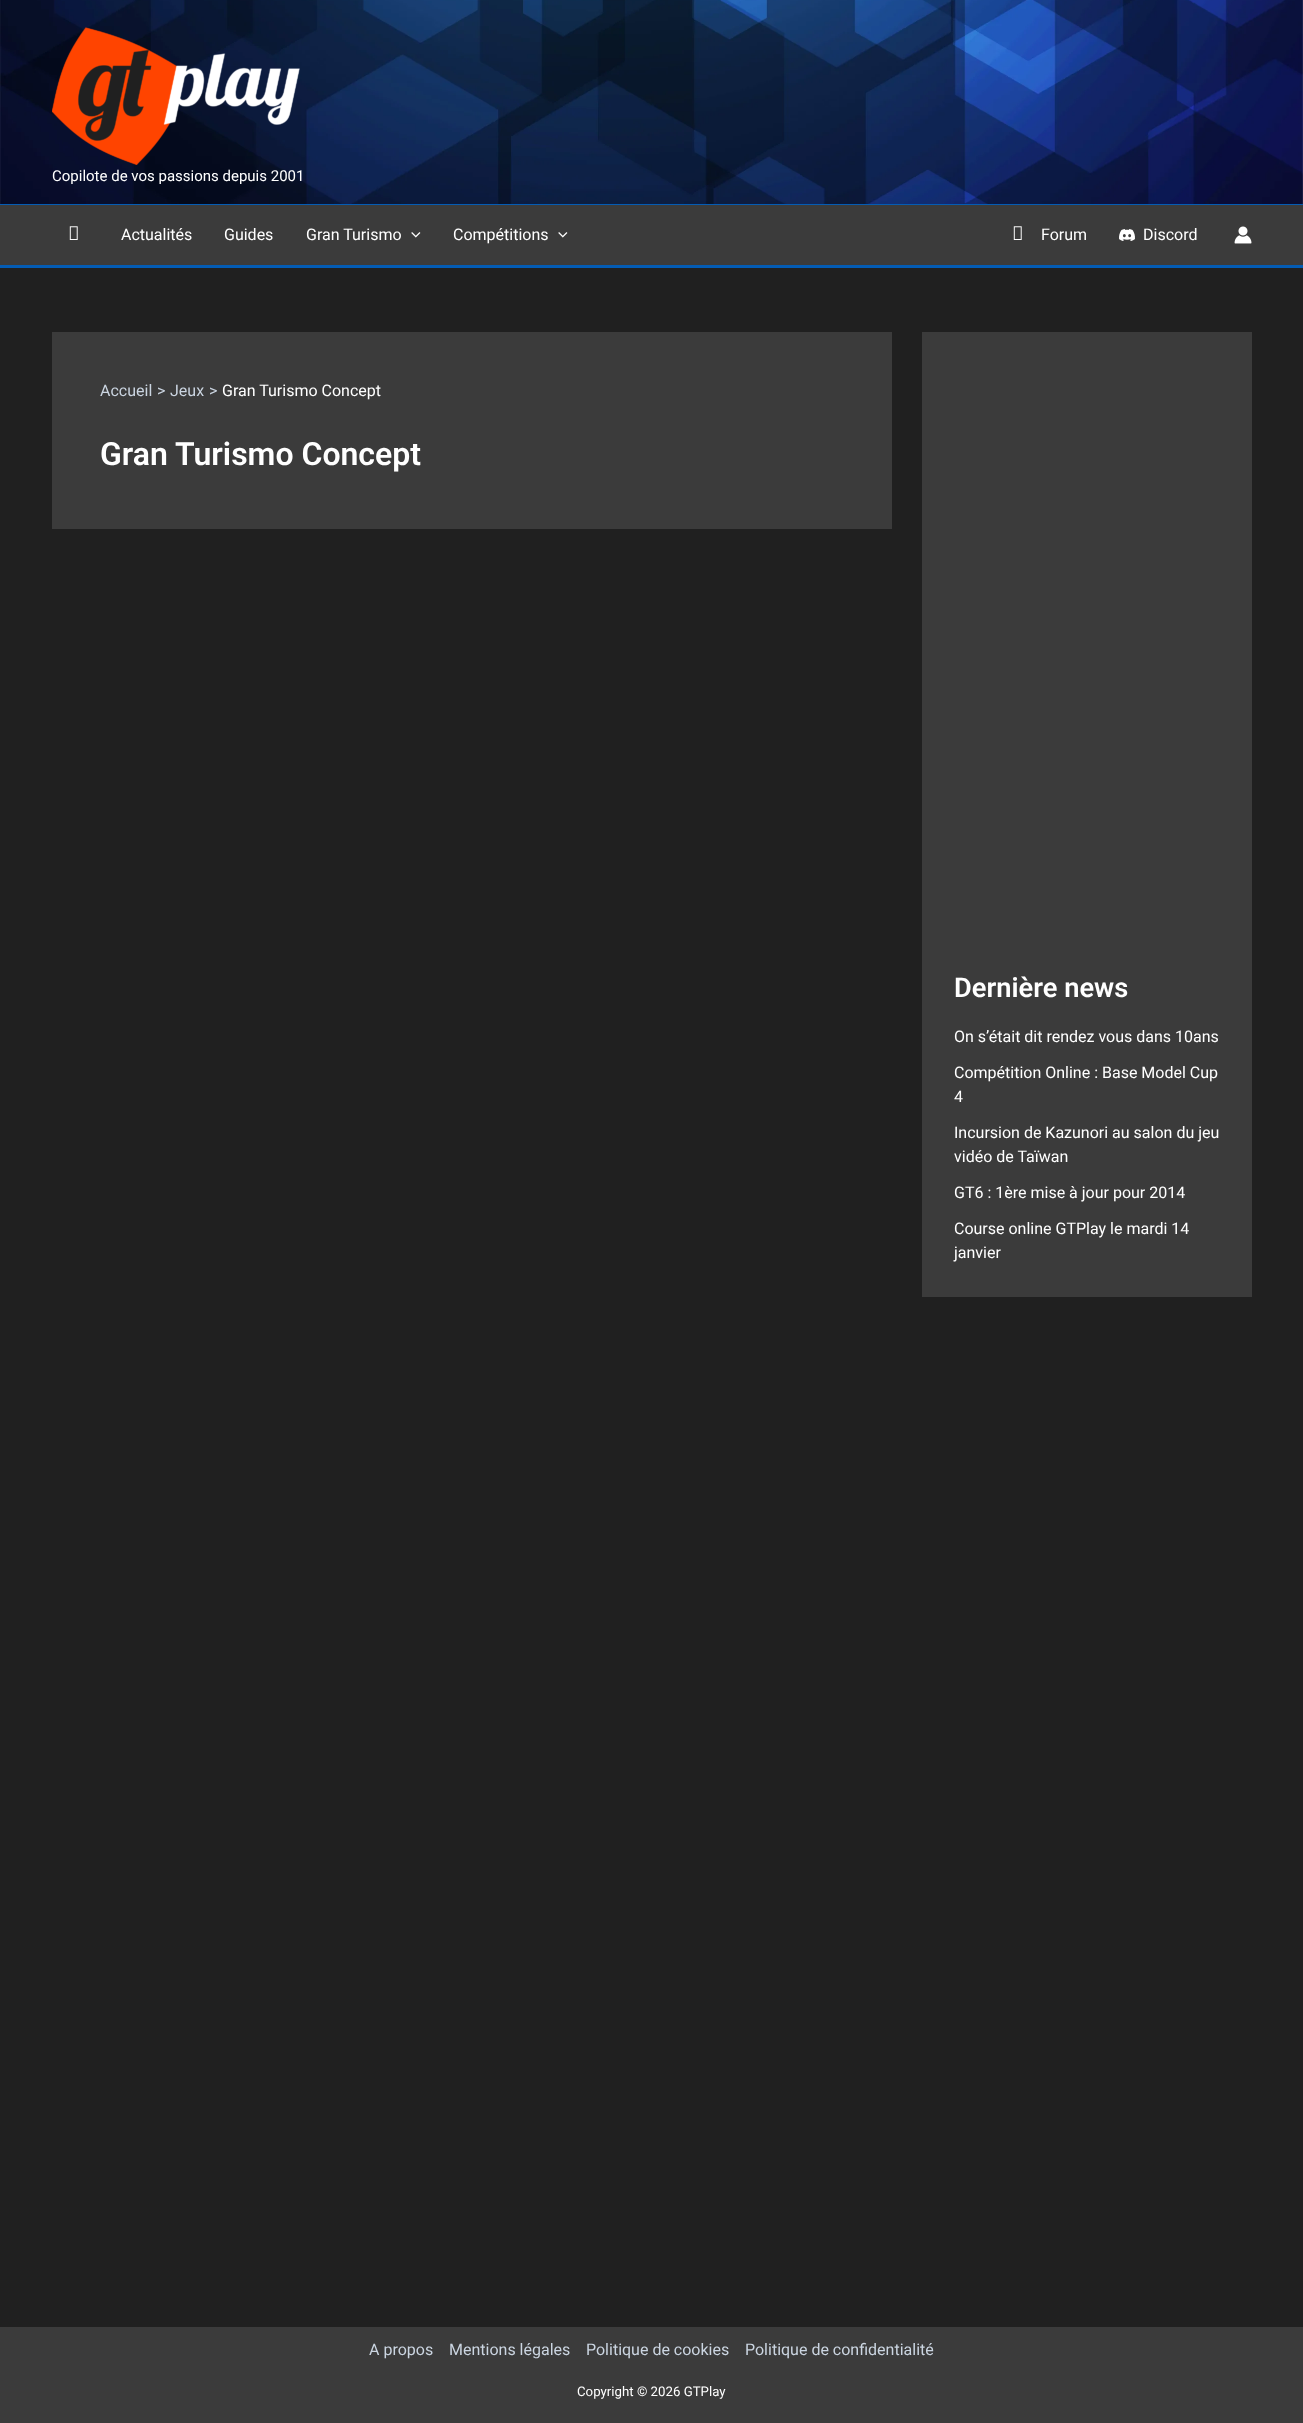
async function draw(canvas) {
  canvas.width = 1303;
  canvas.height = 2423;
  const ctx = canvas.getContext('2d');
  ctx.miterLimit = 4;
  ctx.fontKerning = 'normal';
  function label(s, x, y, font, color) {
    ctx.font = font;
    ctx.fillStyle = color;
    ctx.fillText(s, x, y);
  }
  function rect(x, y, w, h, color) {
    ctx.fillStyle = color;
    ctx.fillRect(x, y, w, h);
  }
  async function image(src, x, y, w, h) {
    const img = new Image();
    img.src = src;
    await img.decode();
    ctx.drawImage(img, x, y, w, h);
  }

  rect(0, 0, 1303, 2423, '#202020');
  await image('assets/img1.png', 0, 0, 1303, 204);
  rect(0, 204, 1303, 1, '#045cb4');
  await image('assets/img2.png', 52, 27, 248, 138);
  label('Copilote de vos passions depuis 2001', 52, 181, '15px Roboto', '#fff');
  rect(0, 205, 1303, 60, '#3b3b3b');
  rect(0, 265, 1303, 3, '#045cb4');
  await image('assets/img3.png', 69, 226, 9, 14);
  label('Actualités', 121, 240, '16px Roboto', '#fff');
  label('Guides', 224, 240, '16px Roboto', '#fff');
  label('Gran Turismo', 306, 240, '16px Roboto', '#fff');
  await image('assets/img4.png', 411, 232, 10, 6);
  label('Compétitions', 453, 240, '16px Roboto', '#fff');
  await image('assets/img4.png', 558, 232, 10, 6);
  await image('assets/img3.png', 1013, 226, 9, 14);
  label('Forum', 1041, 240, '16px Roboto', '#fff');
  await image('assets/img5.png', 1119, 229, 16, 12);
  label('Discord', 1143, 240, '16px Roboto', '#fff');
  await image('assets/img6.png', 1234, 226, 18, 18);
  rect(52, 332, 840, 197, '#3b3b3b');
  label('Accueil', 100, 396, '16px Roboto', '#cbd5e1');
  label('>', 157, 396, '16px Roboto', '#cbd5e1');
  label('Jeux', 170, 396, '16px Roboto', '#cbd5e1');
  label('>', 209, 396, '16px Roboto', '#cbd5e1');
  label('Gran Turismo Concept', 222, 396, '16px Roboto', '#fff');
  label('Gran Turismo Concept', 100, 465, '600 32px Roboto', '#fff');
  rect(922, 332, 330, 965, '#3b3b3b');
  label('Dernière news', 954, 997, '600 27.25px Roboto', '#fff');
  label('On s’était dit rendez vous dans 10ans', 954, 1042, '16px Roboto', '#fff');
  label('Compétition Online : Base Model Cup', 954, 1078, '16px Roboto', '#fff');
  label('4', 954, 1102, '16px Roboto', '#fff');
  label('Incursion de Kazunori au salon du jeu', 954, 1138, '16px Roboto', '#fff');
  label('vidéo de Taïwan', 954, 1162, '16px Roboto', '#fff');
  label('GT6 : 1ère mise à jour pour 2014', 954, 1198, '16px Roboto', '#fff');
  label('Course online GTPlay le mardi 14', 954, 1234, '16px Roboto', '#fff');
  label('janvier', 954, 1258, '16px Roboto', '#fff');
  rect(0, 2327, 1303, 96, '#3b3b3b');
  label('A propos', 369, 2355, '16px Roboto', '#cbd5e1');
  label('Mentions légales', 449, 2355, '16px Roboto', '#cbd5e1');
  label('Politique de cookies', 586, 2355, '16px Roboto', '#cbd5e1');
  label('Politique de confidentialité', 745, 2355, '16px Roboto', '#cbd5e1');
  label('Copyright © 2026 GTPlay', 577, 2396, '13.25px Roboto', '#fff');
}

draw(document.querySelector('canvas'));
